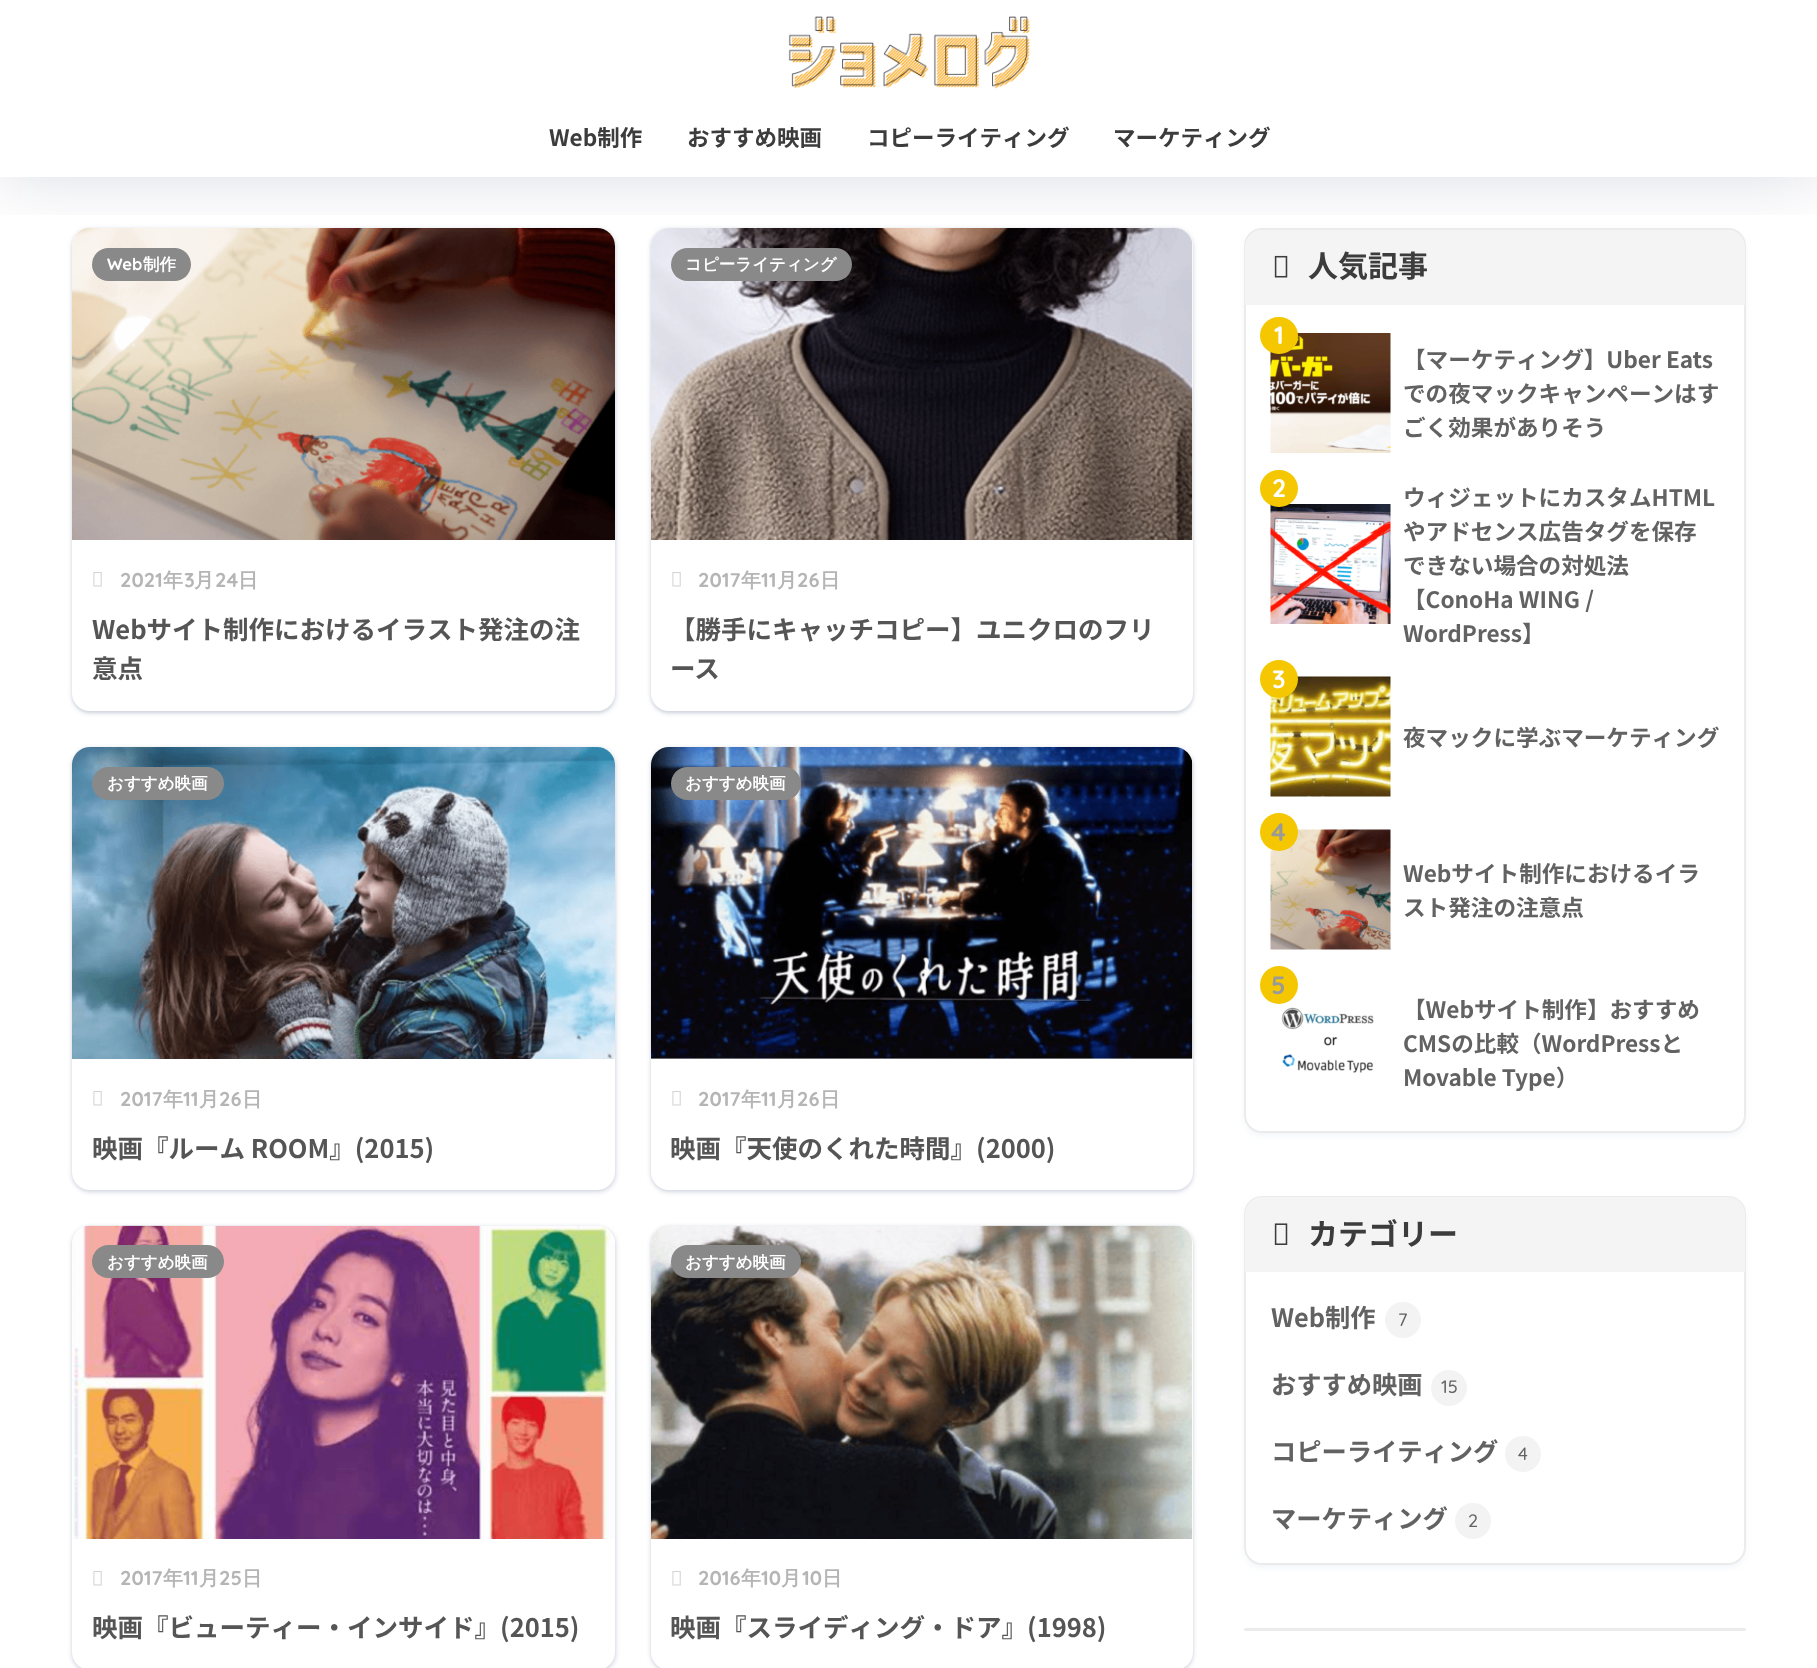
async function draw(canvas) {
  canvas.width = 1817;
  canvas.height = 1668;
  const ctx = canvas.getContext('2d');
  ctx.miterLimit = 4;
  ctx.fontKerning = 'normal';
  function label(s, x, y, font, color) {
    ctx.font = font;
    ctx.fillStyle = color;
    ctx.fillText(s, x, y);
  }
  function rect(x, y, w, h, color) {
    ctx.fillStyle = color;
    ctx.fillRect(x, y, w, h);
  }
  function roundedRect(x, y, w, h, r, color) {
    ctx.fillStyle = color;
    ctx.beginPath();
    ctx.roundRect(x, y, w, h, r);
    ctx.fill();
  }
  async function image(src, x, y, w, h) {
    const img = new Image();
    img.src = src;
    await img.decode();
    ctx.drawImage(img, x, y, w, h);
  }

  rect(0, 0, 1817, 1668, '#fff');
  ctx.fillStyle = '#182c541a';
  ctx.filter = 'blur(2px)';
  ctx.beginPath();
  ctx.roundRect(71, 228, 546, 486, 20);
  ctx.fill();
  ctx.filter = 'none';
  ctx.filter = 'blur(1.5px)';
  ctx.beginPath();
  ctx.roundRect(72, 230, 543, 483, 18);
  ctx.fill();
  ctx.filter = 'none';
  roundedRect(72, 228, 543, 483, 18, '#fff');
  await image('assets/img2.png', 72, 228, 543, 312);
  roundedRect(92, 248, 99, 33, 16.5, '#898989');
  ctx.fillStyle = '#182c541a';
  ctx.filter = 'blur(2px)';
  ctx.beginPath();
  ctx.roundRect(650, 228, 544, 486, 20);
  ctx.fill();
  ctx.filter = 'none';
  ctx.filter = 'blur(1.5px)';
  ctx.beginPath();
  ctx.roundRect(651, 230, 542, 483, 18);
  ctx.fill();
  ctx.filter = 'none';
  roundedRect(651, 228, 542, 483, 18, '#fff');
  await image('assets/img4.png', 651, 228, 542, 312);
  roundedRect(671, 248, 181, 33, 16.5, '#898989');
  ctx.fillStyle = '#4385bb12';
  ctx.filter = 'blur(3px)';
  ctx.beginPath();
  ctx.roundRect(1244, 231, 502, 905, 18);
  ctx.fill();
  ctx.filter = 'none';
  roundedRect(1244, 228, 502, 905, 18, '#fff');
  ctx.beginPath();
  ctx.roundRect(1245, 229, 500, 903, 17);
  ctx.strokeStyle = '#00000014';
  ctx.lineWidth = 2;
  ctx.stroke();
  ctx.fillStyle = '#f4f4f4';
  ctx.beginPath();
  ctx.roundRect(1245, 230, 500, 75, [17, 17, 0, 0]);
  ctx.fill();
  await image('assets/img9.png', 1274, 255, 14, 23);
  ctx.save();
  ctx.beginPath();
  ctx.rect(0, 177, 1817, 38);
  ctx.clip();
  ctx.fillStyle = '#000c4226';
  ctx.filter = 'blur(34px)';
  ctx.beginPath();
  ctx.rect(0, 0, 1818, 177);
  ctx.fill();
  ctx.filter = 'none';
  ctx.restore();
  await image('assets/img1.png', 788, 16, 242, 73);
  label('Web制作', 549, 146, 'bold 22.5px Noto Sans JP', '#3c3c3c');
  label('おすすめ映画', 687, 146, 'bold 22.5px Noto Sans JP', '#3c3c3c');
  label('コピーライティング', 867, 146, 'bold 22.5px Noto Sans JP', '#3c3c3c');
  label('マーケティング', 1113, 146, 'bold 22.5px Noto Sans JP', '#3c3c3c');
  label('Web', 107, 270, 'bold 16.5px Quicksand', '#fff');
  label('制作', 143, 270, 'bold 16.5px WenQuanYi Zen Hei', '#fff');
  await image('assets/img3.png', 93, 572, 9, 15);
  label('2021', 120, 587, 'bold 20px Quicksand', '#b5b5b5');
  label('年', 163, 587, 'bold 20px WenQuanYi Zen Hei', '#b5b5b5');
  label('3', 184, 587, 'bold 20px Quicksand', '#b5b5b5');
  label('月', 194, 587, 'bold 20px WenQuanYi Zen Hei', '#b5b5b5');
  label('24', 215, 587, 'bold 20px Quicksand', '#b5b5b5');
  label('日', 238, 587, 'bold 20px WenQuanYi Zen Hei', '#b5b5b5');
  label('Webサイト制作におけるイラスト発注の注', 92, 639, 'bold 25.5px Noto Sans JP', '#555');
  label('意点', 92, 678, 'bold 25.5px Noto Sans JP', '#555');
  label('コピーライティング', 685, 270, 'bold 16.5px WenQuanYi Zen Hei', '#fff');
  await image('assets/img3.png', 672, 572, 9, 15);
  label('2017', 698, 587, 'bold 20px Quicksand', '#b5b5b5');
  label('年', 741, 587, 'bold 20px WenQuanYi Zen Hei', '#b5b5b5');
  label('11', 761, 587, 'bold 20px Quicksand', '#b5b5b5');
  label('月', 777, 587, 'bold 20px WenQuanYi Zen Hei', '#b5b5b5');
  label('26', 797, 587, 'bold 20px Quicksand', '#b5b5b5');
  label('日', 820, 587, 'bold 20px WenQuanYi Zen Hei', '#b5b5b5');
  label('【勝手にキャッチコピー】ユニクロのフリ', 670, 639, 'bold 25.5px Noto Sans JP', '#555');
  label('ース', 670, 678, 'bold 25.5px Noto Sans JP', '#555');
  ctx.fillStyle = '#182c541a';
  ctx.filter = 'blur(2px)';
  ctx.beginPath();
  ctx.roundRect(71, 747, 546, 446, 20);
  ctx.fill();
  ctx.filter = 'none';
  ctx.filter = 'blur(1.5px)';
  ctx.beginPath();
  ctx.roundRect(72, 749, 543, 442, 18);
  ctx.fill();
  ctx.filter = 'none';
  roundedRect(72, 747, 543, 443, 18, '#fff');
  await image('assets/img5.png', 72, 747, 543, 312);
  roundedRect(92, 767, 132, 33, 16.5, '#898989');
  label('おすすめ映画', 107, 789, 'bold 16.5px WenQuanYi Zen Hei', '#fff');
  await image('assets/img3.png', 93, 1091, 9, 15);
  label('2017', 120, 1106, 'bold 20px Quicksand', '#b5b5b5');
  label('年', 163, 1106, 'bold 20px WenQuanYi Zen Hei', '#b5b5b5');
  label('11', 183, 1106, 'bold 20px Quicksand', '#b5b5b5');
  label('月', 199, 1106, 'bold 20px WenQuanYi Zen Hei', '#b5b5b5');
  label('26', 219, 1106, 'bold 20px Quicksand', '#b5b5b5');
  label('日', 242, 1106, 'bold 20px WenQuanYi Zen Hei', '#b5b5b5');
  label('映画『ルーム ROOM』(2015)', 92, 1158, 'bold 25.5px Noto Sans JP', '#555');
  ctx.fillStyle = '#182c541a';
  ctx.filter = 'blur(2px)';
  ctx.beginPath();
  ctx.roundRect(650, 747, 544, 446, 20);
  ctx.fill();
  ctx.filter = 'none';
  ctx.filter = 'blur(1.5px)';
  ctx.beginPath();
  ctx.roundRect(651, 749, 542, 442, 18);
  ctx.fill();
  ctx.filter = 'none';
  roundedRect(651, 747, 542, 443, 18, '#fff');
  await image('assets/img6.png', 651, 747, 542, 312);
  roundedRect(671, 767, 130, 33, 16.5, '#898989');
  label('おすすめ映画', 685, 789, 'bold 16.5px WenQuanYi Zen Hei', '#fff');
  await image('assets/img3.png', 672, 1091, 9, 15);
  label('2017', 698, 1106, 'bold 20px Quicksand', '#b5b5b5');
  label('年', 741, 1106, 'bold 20px WenQuanYi Zen Hei', '#b5b5b5');
  label('11', 761, 1106, 'bold 20px Quicksand', '#b5b5b5');
  label('月', 777, 1106, 'bold 20px WenQuanYi Zen Hei', '#b5b5b5');
  label('26', 797, 1106, 'bold 20px Quicksand', '#b5b5b5');
  label('日', 820, 1106, 'bold 20px WenQuanYi Zen Hei', '#b5b5b5');
  label('映画『天使のくれた時間』(2000)', 670, 1158, 'bold 25.5px Noto Sans JP', '#555');
  ctx.fillStyle = '#182c541a';
  ctx.filter = 'blur(2px)';
  ctx.beginPath();
  ctx.roundRect(71, 1226, 546, 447, 20);
  ctx.fill();
  ctx.filter = 'none';
  ctx.filter = 'blur(1.5px)';
  ctx.beginPath();
  ctx.roundRect(72, 1227, 543, 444, 18);
  ctx.fill();
  ctx.filter = 'none';
  roundedRect(72, 1226, 543, 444, 18, '#fff');
  await image('assets/img7.png', 72, 1225, 543, 314);
  roundedRect(92, 1245, 132, 33, 16.5, '#898989');
  label('おすすめ映画', 107, 1268, 'bold 16.5px WenQuanYi Zen Hei', '#fff');
  await image('assets/img3.png', 93, 1571, 9, 15);
  label('2017', 120, 1585, 'bold 20px Quicksand', '#b5b5b5');
  label('年', 163, 1585, 'bold 20px WenQuanYi Zen Hei', '#b5b5b5');
  label('11', 183, 1585, 'bold 20px Quicksand', '#b5b5b5');
  label('月', 199, 1585, 'bold 20px WenQuanYi Zen Hei', '#b5b5b5');
  label('25', 219, 1585, 'bold 20px Quicksand', '#b5b5b5');
  label('日', 242, 1585, 'bold 20px WenQuanYi Zen Hei', '#b5b5b5');
  label('映画『ビューティー・インサイド』(2015)', 92, 1637, 'bold 25.5px Noto Sans JP', '#555');
  ctx.fillStyle = '#182c541a';
  ctx.filter = 'blur(2px)';
  ctx.beginPath();
  ctx.roundRect(650, 1226, 544, 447, 20);
  ctx.fill();
  ctx.filter = 'none';
  ctx.filter = 'blur(1.5px)';
  ctx.beginPath();
  ctx.roundRect(651, 1227, 542, 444, 18);
  ctx.fill();
  ctx.filter = 'none';
  roundedRect(651, 1226, 542, 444, 18, '#fff');
  await image('assets/img8.png', 651, 1225, 542, 314);
  roundedRect(671, 1245, 130, 33, 16.5, '#898989');
  label('おすすめ映画', 685, 1268, 'bold 16.5px WenQuanYi Zen Hei', '#fff');
  await image('assets/img3.png', 672, 1571, 9, 15);
  label('2016', 698, 1585, 'bold 20px Quicksand', '#b5b5b5');
  label('年', 741, 1585, 'bold 20px WenQuanYi Zen Hei', '#b5b5b5');
  label('10', 761, 1585, 'bold 20px Quicksand', '#b5b5b5');
  label('月', 781, 1585, 'bold 20px WenQuanYi Zen Hei', '#b5b5b5');
  label('10', 802, 1585, 'bold 20px Quicksand', '#b5b5b5');
  label('日', 822, 1585, 'bold 20px WenQuanYi Zen Hei', '#b5b5b5');
  label('映画『スライディング・ドア』(1998)', 670, 1637, 'bold 25.5px Noto Sans JP', '#555');
  label('人気記事', 1308, 277, 'bold 30px Noto Sans JP', '#3c3c3c');
  await image('assets/img10.png', 1270, 333, 121, 120);
  roundedRect(1260, 317, 38, 37, 18.5, '#f4c700');
  label('1', 1274, 344, 'bold 25.25px Quicksand', '#fff');
  label('【マーケティング】Uber Eats', 1403, 368, 'bold 22.6px Noto Sans JP', '#626262');
  label('での夜マックキャンペーンはす', 1403, 402, 'bold 22.6px Noto Sans JP', '#626262');
  label('ごく効果がありそう', 1403, 436, 'bold 22.6px Noto Sans JP', '#626262');
  await image('assets/img11.png', 1270, 504, 121, 120);
  roundedRect(1260, 470, 38, 37, 18.5, '#f4c700');
  label('2', 1272, 497, 'bold 25.25px Quicksand', '#fff');
  label('ウィジェットにカスタムHTML', 1403, 506, 'bold 22.6px Noto Sans JP', '#626262');
  label('やアドセンス広告タグを保存', 1403, 540, 'bold 22.6px Noto Sans JP', '#626262');
  label('できない場合の対処法', 1403, 574, 'bold 22.6px Noto Sans JP', '#626262');
  label('【ConoHa WING /', 1403, 608, 'bold 22.6px Noto Sans JP', '#626262');
  label('WordPress】', 1403, 642, 'bold 22.6px Noto Sans JP', '#626262');
  await image('assets/img12.png', 1270, 676, 121, 121);
  ctx.fillStyle = '#f4c700';
  ctx.beginPath();
  ctx.arc(1279, 679, 19, 0, 2 * Math.PI);
  ctx.fill();
  label('3', 1272, 688, 'bold 25.25px Quicksand', '#fff');
  label('夜マックに学ぶマーケティング', 1403, 746, 'bold 22.6px Noto Sans JP', '#626262');
  await image('assets/img13.png', 1270, 829, 121, 121);
  ctx.fillStyle = '#f4c700';
  ctx.beginPath();
  ctx.arc(1279, 832, 19, 0, 2 * Math.PI);
  ctx.fill();
  label('4', 1271, 841, 'bold 25.25px Quicksand', '#9a9a9a');
  label('Webサイト制作におけるイラ', 1403, 882, 'bold 22.6px Noto Sans JP', '#626262');
  label('スト発注の注意点', 1403, 916, 'bold 22.6px Noto Sans JP', '#626262');
  ctx.fillStyle = '#f4c700';
  ctx.beginPath();
  ctx.arc(1279, 985, 19, 0, 2 * Math.PI);
  ctx.fill();
  label('5', 1271, 994, 'bold 25.25px Quicksand', '#9a9a9a');
  await image('assets/img14.png', 1281, 1007, 93, 66);
  label('【Webサイト制作】おすすめ', 1403, 1018, 'bold 22.6px Noto Sans JP', '#626262');
  label('CMSの比較（WordPressと', 1403, 1052, 'bold 22.6px Noto Sans JP', '#626262');
  label('Movable Type）', 1403, 1086, 'bold 22.6px Noto Sans JP', '#626262');
  ctx.fillStyle = '#4385bb12';
  ctx.filter = 'blur(3px)';
  ctx.beginPath();
  ctx.roundRect(1244, 1199, 502, 369, 18);
  ctx.fill();
  ctx.filter = 'none';
  roundedRect(1244, 1196, 502, 369, 18, '#fff');
  ctx.beginPath();
  ctx.roundRect(1245, 1197, 500, 367, 17);
  ctx.stroke();
  ctx.fillStyle = '#f4f4f4';
  ctx.beginPath();
  ctx.roundRect(1245, 1197, 500, 75, [17, 17, 0, 0]);
  ctx.fill();
  await image('assets/img15.png', 1274, 1223, 14, 22);
  label('カテゴリー', 1308, 1245, 'bold 30px Noto Sans JP', '#3c3c3c');
  label('Web制作', 1271, 1327, 'bold 25.25px Noto Sans JP', '#626262');
  ctx.fillStyle = '#f3f3f3';
  ctx.beginPath();
  ctx.arc(1403, 1320, 18, 0, 2 * Math.PI);
  ctx.fill();
  label('7', 1398, 1326, '500 18px Quicksand', '#626262');
  label('おすすめ映画', 1271, 1394, 'bold 25.25px Noto Sans JP', '#626262');
  ctx.fillStyle = '#f3f3f3';
  ctx.beginPath();
  ctx.arc(1449, 1388, 18, 0, 2 * Math.PI);
  ctx.fill();
  label('15', 1441, 1393, '500 18px Quicksand', '#626262');
  label('コピーライティング', 1271, 1461, 'bold 25.25px Noto Sans JP', '#626262');
  ctx.fillStyle = '#f3f3f3';
  ctx.beginPath();
  ctx.arc(1523, 1454, 18, 0, 2 * Math.PI);
  ctx.fill();
  label('4', 1518, 1460, '500 18px Quicksand', '#626262');
  label('マーケティング', 1271, 1528, 'bold 25.25px Noto Sans JP', '#626262');
  ctx.fillStyle = '#f3f3f3';
  ctx.beginPath();
  ctx.arc(1473, 1521, 18, 0, 2 * Math.PI);
  ctx.fill();
  label('2', 1468, 1527, '500 18px Quicksand', '#626262');
  roundedRect(1244, 1628, 502, 3, 1.5, '#ebebeb');
}

draw(document.querySelector('canvas'));
